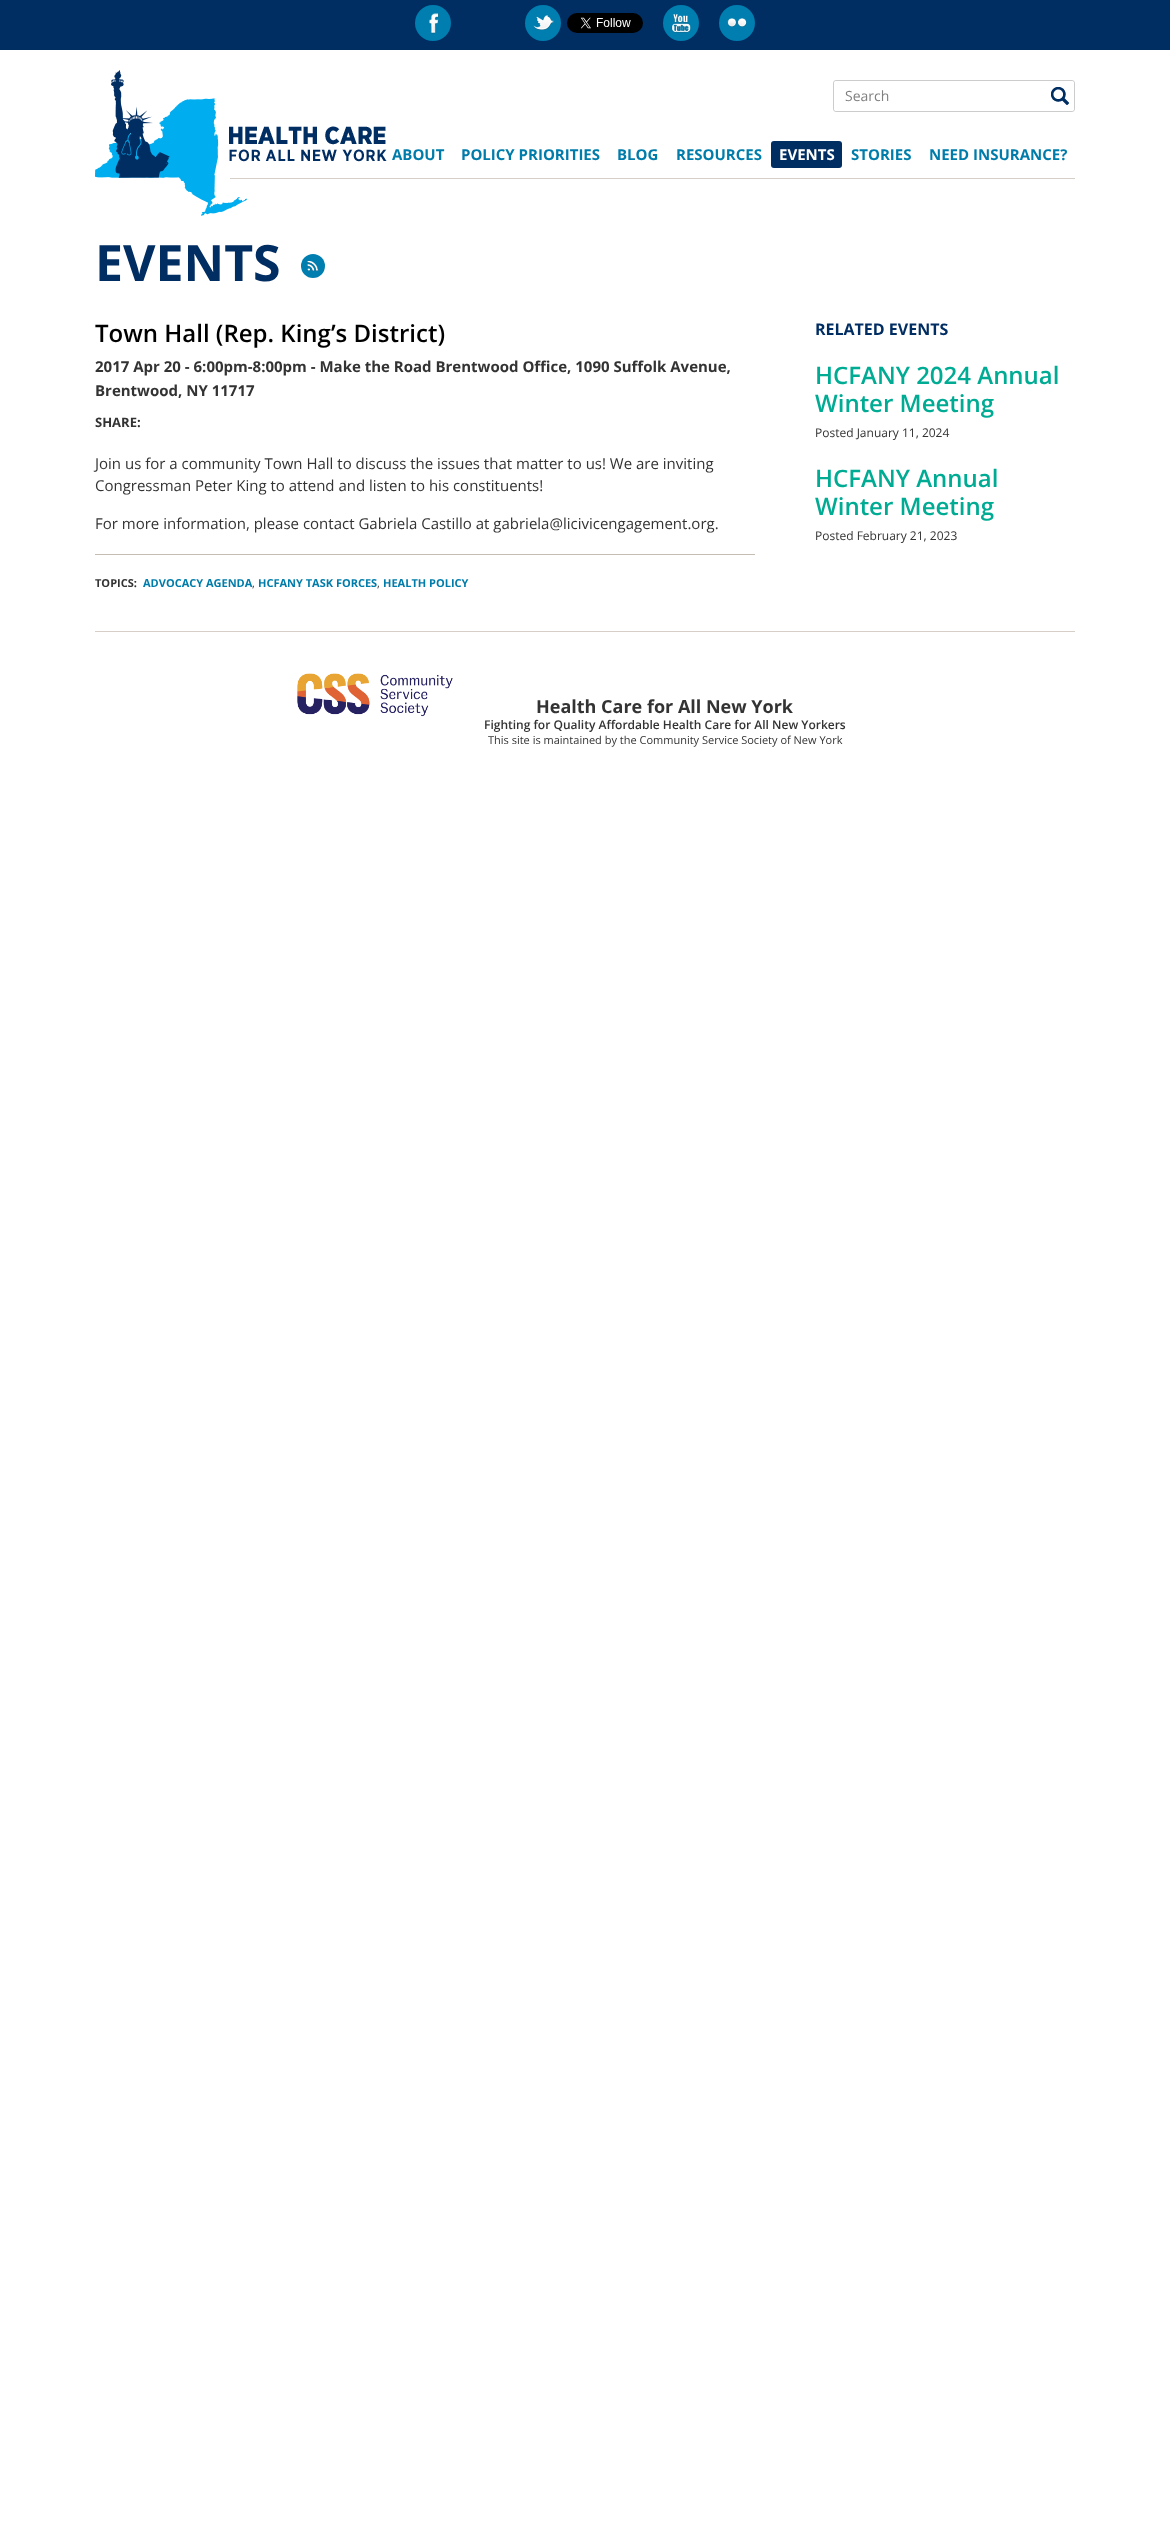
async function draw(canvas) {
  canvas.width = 1170;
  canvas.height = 2545;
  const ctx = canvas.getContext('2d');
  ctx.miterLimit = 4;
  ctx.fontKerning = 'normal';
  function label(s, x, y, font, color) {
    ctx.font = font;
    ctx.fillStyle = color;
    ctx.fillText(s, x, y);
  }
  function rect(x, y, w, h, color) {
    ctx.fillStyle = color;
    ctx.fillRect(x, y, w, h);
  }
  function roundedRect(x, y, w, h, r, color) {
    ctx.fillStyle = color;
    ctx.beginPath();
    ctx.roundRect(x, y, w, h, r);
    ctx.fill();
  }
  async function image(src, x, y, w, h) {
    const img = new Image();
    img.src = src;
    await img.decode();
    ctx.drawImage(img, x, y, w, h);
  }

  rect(0, 0, 1170, 2545, '#fff');
  rect(0, 0, 1170, 50, '#002d62');
  ctx.fillStyle = '#007eb0';
  ctx.beginPath();
  ctx.arc(433, 23, 18, 0, 2 * Math.PI);
  ctx.fill();
  await image('assets/img1.png', 428, 13, 11, 21);
  ctx.beginPath();
  ctx.arc(543, 23, 18, 0, 2 * Math.PI);
  ctx.fill();
  await image('assets/img2.png', 533, 15, 21, 15);
  await image('assets/img3.png', 567, 13, 76, 20);
  ctx.beginPath();
  ctx.arc(681, 23, 18, 0, 2 * Math.PI);
  ctx.fill();
  await image('assets/img4.png', 671, 14, 20, 19);
  ctx.beginPath();
  ctx.arc(737, 23, 18, 0, 2 * Math.PI);
  ctx.fill();
  await image('assets/img5.png', 727, 18, 20, 9);
  rect(230, 178, 845, 1, '#d5cfc7');
  await image('assets/img6.png', 95, 70, 292, 146);
  ctx.beginPath();
  ctx.roundRect(833.5, 80.5, 241, 31, 2.5);
  ctx.strokeStyle = '#ccc';
  ctx.stroke();
  roundedRect(834, 81, 240, 30, 3, '#fff');
  label('Search', 845, 101, '14px Open Sans', '#808080');
  await image('assets/img7.png', 1051, 87, 18, 18);
  label('ABOUT', 392, 160, 'bold 15px Open Sans', '#007caa');
  label('POLICY PRIORITIES', 461, 160, 'bold 15px Open Sans', '#007caa');
  label('BLOG', 617, 160, 'bold 15px Open Sans', '#007caa');
  label('RESOURCES', 676, 160, 'bold 15px Open Sans', '#007caa');
  roundedRect(771, 141, 71, 27, 3, '#002d62');
  label('EVENTS', 779, 160, 'bold 15px Open Sans', '#fff');
  label('STORIES', 851, 160, 'bold 15px Open Sans', '#007caa');
  label('NEED INSURANCE?', 929, 160, 'bold 15px Open Sans', '#007caa');
  label('EVENTS', 95, 281, 'bold 50px Open Sans', '#002d62');
  ctx.fillStyle = '#007eb0';
  ctx.beginPath();
  ctx.arc(313, 266, 12, 0, 2 * Math.PI);
  ctx.fill();
  await image('assets/img8.png', 307, 261, 12, 10);
  label('Town Hall (Rep. King’s District)', 95, 342, '600 24px Open Sans', '#000');
  label('2017 Apr 20 - 6:00pm-8:00pm - Make the Road Brentwood Office, 1090 Suffolk Avenue,', 95, 372, 'bold 15px Open Sans', '#333');
  label('Brentwood, NY 11717', 95, 396, 'bold 15px Open Sans', '#333');
  label('SHARE:', 95, 427, 'bold 13px Open Sans', '#333');
  label('Join us for a community Town Hall to discuss the issues that matter to us! We are inviting', 95, 469, '15px Open Sans', '#333');
  label('Congressman Peter King to attend and listen to his constituents!', 95, 491, '15px Open Sans', '#333');
  label('For more information, please contact Gabriela Castillo at gabriela@licivicengagement.org.', 95, 529, '15px Open Sans', '#333');
  rect(95, 554, 660, 1, '#c6bdb2');
  label('TOPICS:', 95, 587, 'bold 11px Open Sans', '#333');
  label('ADVOCACY AGENDA', 143, 587, 'bold 11px Open Sans', '#007caa');
  label(',', 252, 587, '11px Open Sans', '#333');
  label('HCFANY TASK FORCES', 258, 587, 'bold 11px Open Sans', '#007caa');
  label(',', 377, 587, '11px Open Sans', '#333');
  label('HEALTH POLICY', 383, 587, 'bold 11px Open Sans', '#007caa');
  label('RELATED EVENTS', 815, 335, 'bold 16px Open Sans', '#002d62');
  label('HCFANY 2024 Annual', 815, 384, '600 24px Open Sans', '#00ab94');
  label('Winter Meeting', 815, 412, '600 24px Open Sans', '#00ab94');
  label('Posted January 11, 2024', 815, 437, '12px Open Sans', '#333');
  label('HCFANY Annual', 815, 487, '600 24px Open Sans', '#00ab94');
  label('Winter Meeting', 815, 515, '600 24px Open Sans', '#00ab94');
  label('Posted February 21, 2023', 815, 540, '12px Open Sans', '#333');
  rect(95, 631, 980, 1, '#d5cfc7');
  await image('assets/img9.png', 297, 673, 156, 44);
  label('Health Care for All New York', 536, 713, 'bold 18px Open Sans', '#333');
  label('Fighting for Quality Affordable Health Care for All New Yorkers', 484, 729, '600 12px Open Sans', '#333');
  label('This site is maintained by the Community Service Society of New York', 488, 744, '11px Open Sans', '#333');
}

draw(document.querySelector('canvas'));
